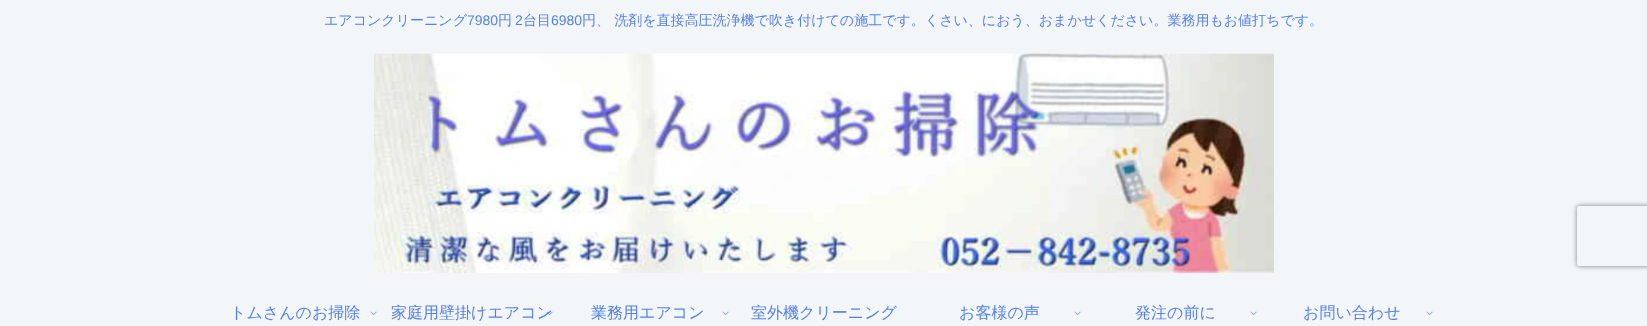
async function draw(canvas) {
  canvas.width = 1647;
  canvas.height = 326;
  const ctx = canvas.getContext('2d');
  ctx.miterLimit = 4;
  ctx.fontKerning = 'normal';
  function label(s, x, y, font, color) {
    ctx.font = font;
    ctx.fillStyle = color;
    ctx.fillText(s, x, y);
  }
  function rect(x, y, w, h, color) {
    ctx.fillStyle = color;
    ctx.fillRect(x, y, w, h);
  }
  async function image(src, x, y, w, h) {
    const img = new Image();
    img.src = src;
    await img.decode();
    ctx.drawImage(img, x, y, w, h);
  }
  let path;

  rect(0, 0, 1647, 326, '#f2f6f9');
  label('エアコンクリーニング', 324, 25, '500 14px WenQuanYi Zen Hei', '#5680ea');
  label('7980', 467, 25, '14px Liberation Sans', '#5680ea');
  label('円', 498, 25, '500 14px WenQuanYi Zen Hei', '#5680ea');
  label('2', 515, 25, '14px Liberation Sans', '#5680ea');
  label('台目', 523, 25, '500 14px WenQuanYi Zen Hei', '#5680ea');
  label('6980', 551, 25, '14px Liberation Sans', '#5680ea');
  label('円、 洗剤を直接高圧洗浄機で吹き付けての施工です。くさい、におう、おまかせください。業務用もお値打ちです。', 582, 25, '500 14px WenQuanYi Zen Hei', '#5680ea');
  await image('assets/img1.png', 374, 52, 900, 221);
  label('トムさんのお掃除', 230, 318, '500 16px WenQuanYi Zen Hei', '#5680ea');
  await image('assets/img2.png', 370, 311, 7, 5);
  label('家庭用壁掛けエアコン', 391, 318, '500 16px WenQuanYi Zen Hei', '#5680ea');
  await image('assets/img3.png', 546, 311, 7, 5);
  label('業務用エアコン', 591, 318, '500 16px WenQuanYi Zen Hei', '#5680ea');
  await image('assets/img2.png', 722, 311, 7, 5);
  label('室外機クリーニング', 751, 318, '500 16px WenQuanYi Zen Hei', '#5680ea');
  label('お客様の声', 959, 318, '500 16px WenQuanYi Zen Hei', '#5680ea');
  await image('assets/img2.png', 1074, 311, 7, 5);
  label('発注の前に', 1135, 318, '500 16px WenQuanYi Zen Hei', '#5680ea');
  await image('assets/img2.png', 1250, 311, 7, 5);
  label('お問い合わせ', 1303, 318, '500 16px WenQuanYi Zen Hei', '#5680ea');
  await image('assets/img2.png', 1426, 311, 7, 5);
  ctx.save();
  path = new Path2D('M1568 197H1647V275H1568ZM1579 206H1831C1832 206 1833 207 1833 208V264C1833 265 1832 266 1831 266H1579C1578 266 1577 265 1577 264V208C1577 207 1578 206 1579 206Z');
  ctx.clip(path, 'evenodd');
  ctx.fillStyle = '#808080';
  ctx.filter = 'blur(2.5px)';
  ctx.beginPath();
  ctx.roundRect(1577, 206, 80, 60, 2);
  ctx.fill();
  ctx.filter = 'none';
  ctx.restore();
}

draw(document.querySelector('canvas'));
